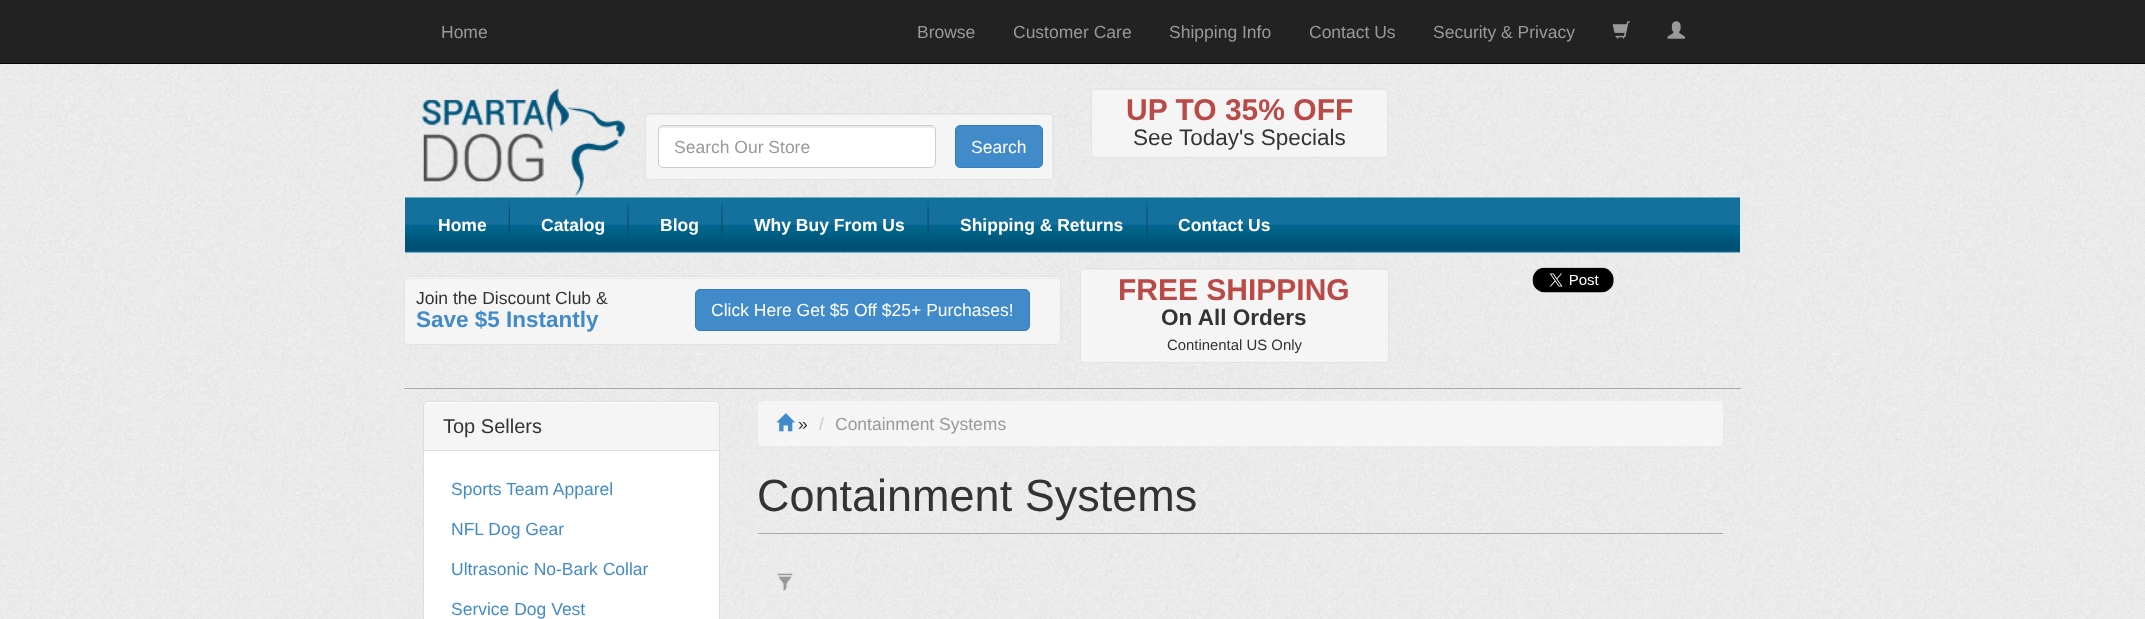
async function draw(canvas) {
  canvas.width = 2145;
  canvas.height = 619;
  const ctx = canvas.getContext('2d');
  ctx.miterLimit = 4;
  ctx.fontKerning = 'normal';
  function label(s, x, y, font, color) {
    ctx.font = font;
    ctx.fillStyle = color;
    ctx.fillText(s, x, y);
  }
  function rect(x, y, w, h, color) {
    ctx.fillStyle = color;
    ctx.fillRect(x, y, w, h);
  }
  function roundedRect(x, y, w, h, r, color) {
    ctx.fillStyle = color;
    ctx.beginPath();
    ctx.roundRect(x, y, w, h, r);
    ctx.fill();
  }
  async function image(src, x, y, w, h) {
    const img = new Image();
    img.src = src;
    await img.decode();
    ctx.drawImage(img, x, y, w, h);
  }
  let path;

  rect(0, 0, 2145, 619, '#fff');
  await image('assets/img1.png', 0, 64, 2145, 555);
  rect(0, 0, 2145, 63, '#222');
  rect(0, 63, 2145, 1, '#080808');
  label('Home', 441, 38, '17.5px Liberation Sans', '#999');
  label('Browse', 917, 38, '17.5px Liberation Sans', '#999');
  label('Customer Care', 1013, 38, '17.5px Liberation Sans', '#999');
  label('Shipping Info', 1169, 38, '17.5px Liberation Sans', '#999');
  label('Contact Us', 1309, 38, '17.5px Liberation Sans', '#999');
  label('Security & Privacy', 1433, 38, '17.5px Liberation Sans', '#999');
  await image('assets/img2.png', 1612, 21, 18, 18);
  await image('assets/img3.png', 1667, 21, 18, 18);
  await image('assets/img4.png', 422, 88, 204, 108);
  roundedRect(645, 113, 409, 67, 4, '#f5f5f5');
  ctx.fillStyle = '#e9e9e9';
  path = new Path2D('M649 115H1050C1051 115 1052 116 1052 118V179C1053 178 1053 177 1053 176V116C1053 115 1052 114 1050 114H648C647 114 646 115 646 116V118C646 116 647 115 649 115Z');
  ctx.fill(path);
  ctx.beginPath();
  ctx.roundRect(645.5, 113.5, 408, 66, 3.5);
  ctx.strokeStyle = '#e3e3e3';
  ctx.stroke();
  roundedRect(658, 125, 278, 43, 5, '#fff');
  ctx.fillStyle = '#ececec';
  path = new Path2D('M662 128H931C933 128 935 129 935 131C935 128 934 126 931 126H663C660 126 659 128 659 131C659 129 660 128 662 128Z');
  ctx.fill(path);
  ctx.beginPath();
  ctx.roundRect(658.5, 125.5, 277, 42, 4.5);
  ctx.strokeStyle = '#ccc';
  ctx.stroke();
  label('Search Our Store', 674, 153, '17.5px Liberation Sans', '#999');
  ctx.fillStyle = '#428bca';
  ctx.beginPath();
  ctx.roundRect(955.5, 125.5, 87, 42, 4.5);
  ctx.fill();
  ctx.strokeStyle = '#357ebd';
  ctx.stroke();
  label('Search', 971, 153, '17.5px Liberation Sans', '#fff');
  roundedRect(1091, 88, 297, 70, 4, '#f5f5f5');
  ctx.fillStyle = '#e9e9e9';
  path = new Path2D('M1095 90H1384C1385 90 1386 91 1386 92C1386 90 1385 89 1384 89H1095L1093 91Z');
  ctx.fill(path);
  ctx.beginPath();
  ctx.roundRect(1091.5, 88.5, 296, 69, 3.5);
  ctx.strokeStyle = '#e3e3e3';
  ctx.stroke();
  label('UP TO 35% OFF', 1126, 120, 'bold 30px Liberation Sans', '#b94a48');
  label('See Today\'s Specials', 1133, 145, '22.5px Liberation Sans', '#333');
  await image('assets/img5.png', 405, 197, 1335, 56);
  label('Home', 438, 231, 'bold 17.5px Liberation Sans', '#fff');
  await image('assets/img6.png', 508, 200, 2, 38);
  label('Catalog', 541, 231, 'bold 17.5px Liberation Sans', '#fff');
  await image('assets/img7.png', 627, 201, 2, 36);
  label('Blog', 660, 231, 'bold 17.5px Liberation Sans', '#fff');
  await image('assets/img8.png', 721, 201, 2, 36);
  label('Why Buy From Us', 754, 231, 'bold 17.5px Liberation Sans', '#fff');
  await image('assets/img7.png', 927, 201, 2, 36);
  label('Shipping & Returns', 960, 231, 'bold 17.5px Liberation Sans', '#fff');
  await image('assets/img8.png', 1146, 201, 2, 36);
  label('Contact Us', 1178, 231, 'bold 17.5px Liberation Sans', '#fff');
  rect(404, 388, 1337, 1, '#a9a9a9');
  roundedRect(404, 276, 657, 69, 4, '#f5f5f5');
  ctx.fillStyle = '#e9e9e9';
  path = new Path2D('M408 279H1058C1059 279 1060 280 1060 281C1060 279 1059 278 1058 278H408C406 278 405 279 405 281C405 280 406 279 408 279Z');
  ctx.fill(path);
  ctx.beginPath();
  ctx.roundRect(404.5, 276.5, 656, 68, 3.5);
  ctx.stroke();
  label('Join the Discount Club &', 416, 304, '17.5px Liberation Sans', '#333');
  label('Save $5 Instantly', 416, 327, 'bold 22.5px Liberation Sans', '#428bca');
  ctx.beginPath();
  ctx.roundRect(695.5, 289.5, 334, 41, 4.5);
  ctx.fill();
  ctx.strokeStyle = '#357ebd';
  ctx.stroke();
  label('Click Here Get $5 Off $25+ Purchases!', 711, 316, '17.5px Liberation Sans', '#fff');
  roundedRect(1080, 268, 309, 95, 4, '#f5f5f5');
  ctx.fillStyle = '#e9e9e9';
  path = new Path2D('M1084 270H1385C1386 270 1388 271 1388 272C1388 270 1387 269 1386 269H1083L1081 271V272C1081 271 1082 270 1084 270Z');
  ctx.fill(path);
  ctx.beginPath();
  ctx.roundRect(1080.5, 268.5, 308, 94, 3.5);
  ctx.strokeStyle = '#e3e3e3';
  ctx.stroke();
  label('FREE SHIPPING', 1118, 300, 'bold 30px Liberation Sans', '#b94a48');
  label('On All Orders', 1161, 325, 'bold 22.5px Liberation Sans', '#333');
  label('Continental US Only', 1167, 350, '14.9px Liberation Sans', '#333');
  await image('assets/img9.png', 1532, 267, 82, 26);
  ctx.fillStyle = '#fff';
  ctx.beginPath();
  ctx.roundRect(423.5, 401.5, 296, 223, 4.5);
  ctx.fill();
  ctx.strokeStyle = '#ddd';
  ctx.stroke();
  ctx.fillStyle = '#f5f5f5';
  ctx.beginPath();
  ctx.roundRect(424, 403, 295, 48, [4, 4, 0, 0]);
  ctx.fill();
  rect(424, 450, 295, 1, '#ddd');
  label('Top Sellers', 443, 433, '20px Liberation Sans', '#333');
  label('Sports Team Apparel', 451, 495, '17.5px Liberation Sans', '#428bca');
  label('NFL Dog Gear', 451, 535, '17.5px Liberation Sans', '#428bca');
  label('Ultrasonic No-Bark Collar', 451, 575, '17.5px Liberation Sans', '#428bca');
  label('Service Dog Vest', 451, 615, '17.5px Liberation Sans', '#428bca');
  roundedRect(758, 401, 965, 45, 5, '#f5f5f5');
  await image('assets/img10.png', 776, 413, 19, 19);
  label('»', 798, 430, '17.5px Liberation Sans', '#333');
  label('/', 819, 430, '17.5px Liberation Sans', '#ccc');
  label('Containment Systems', 835, 430, '17.5px Liberation Sans', '#999');
  rect(758, 533, 965, 1, '#a9a9a9');
  label('Containment Systems', 757, 511, '45px Liberation Sans', '#333');
  await image('assets/img11.png', 777, 573, 16, 18);
}

draw(document.querySelector('canvas'));
